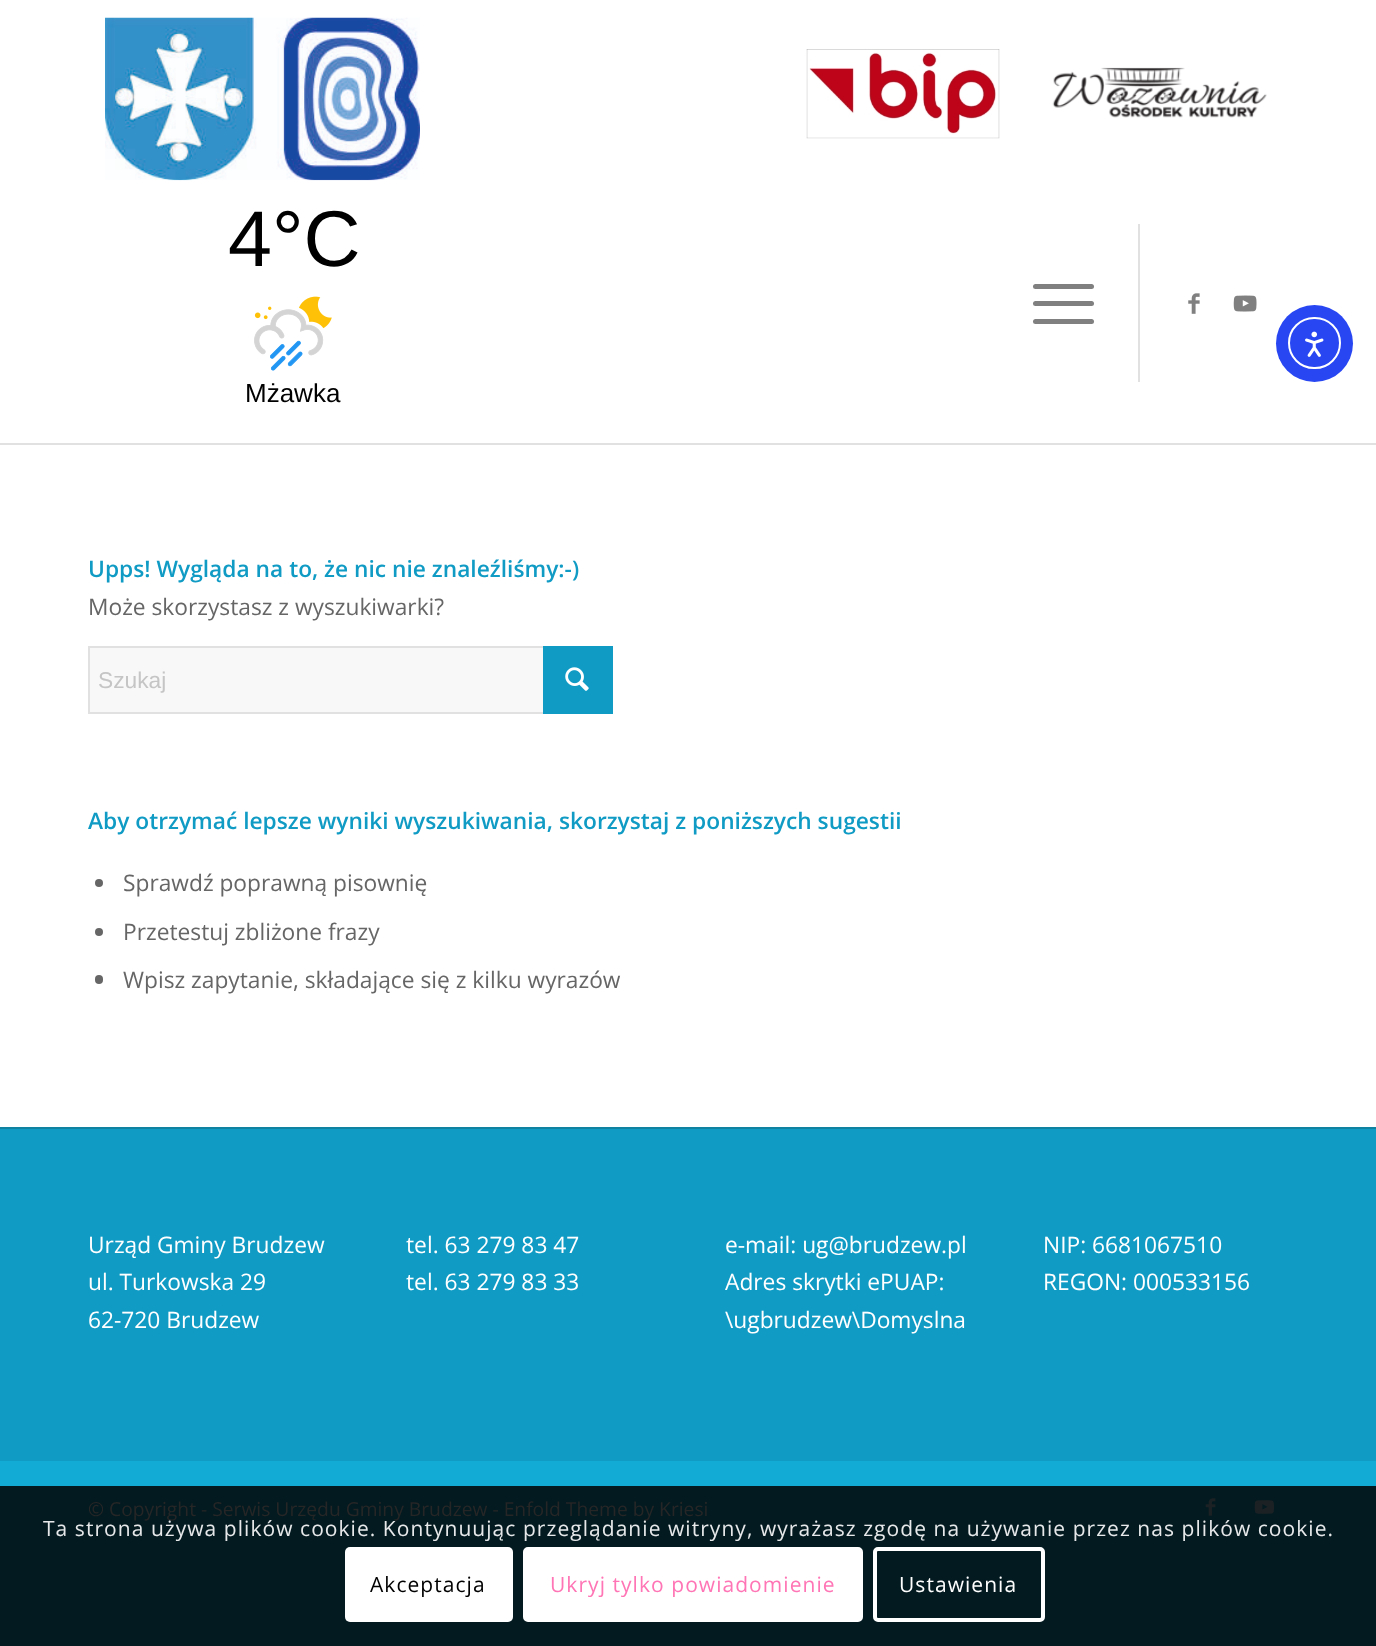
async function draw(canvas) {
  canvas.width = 1376;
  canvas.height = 1646;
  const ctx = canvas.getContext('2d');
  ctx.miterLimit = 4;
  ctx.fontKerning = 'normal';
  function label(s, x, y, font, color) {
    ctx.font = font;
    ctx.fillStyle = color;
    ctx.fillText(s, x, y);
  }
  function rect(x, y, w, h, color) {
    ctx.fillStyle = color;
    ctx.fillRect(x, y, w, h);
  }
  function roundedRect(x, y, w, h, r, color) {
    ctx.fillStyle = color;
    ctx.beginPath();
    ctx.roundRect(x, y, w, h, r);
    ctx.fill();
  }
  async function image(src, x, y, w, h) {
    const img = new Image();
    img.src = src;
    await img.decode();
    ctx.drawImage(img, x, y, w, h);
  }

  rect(0, 0, 1376, 1646, '#031a20');
  rect(0, 0, 1376, 1127, '#fff');
  rect(0, 443, 1376, 2, '#e1e1e1');
  await image('assets/img1.png', 105, 17, 315, 164);
  await image('assets/img2.png', 806, 49, 194, 90);
  await image('assets/img3.png', 1052, 67, 215, 51);
  label('4°C', 228, 266, '79px Liberation Sans', '#000');
  await image('assets/img4.png', 254, 296, 78, 75);
  label('Mżawka', 245, 402, '26px Liberation Sans', '#000');
  rect(1138, 224, 2, 158, '#e1e1e1');
  roundedRect(1033, 301, 61, 5, 2.5, '#808080');
  roundedRect(1033, 284, 61, 5, 2.5, '#808080');
  roundedRect(1033, 319, 61, 5, 2.5, '#808080');
  await image('assets/img5.png', 1188, 293, 12, 21);
  await image('assets/img6.png', 1233, 295, 24, 17);
  label('Upps! Wygląda na to, że nic nie znaleźliśmy:-)', 88, 577, '600 22.75px Open Sans', '#109bc5');
  label('Może skorzystasz z wyszukiwarki?', 88, 615, '22.75px Open Sans', '#666');
  rect(90, 648, 453, 64, '#f8f8f8');
  ctx.strokeStyle = '#e1e1e1';
  ctx.lineWidth = 2;
  ctx.strokeRect(89, 647, 523, 66);
  label('Szukaj', 98, 688, '22.75px Liberation Sans', '#c5c5c5');
  rect(543, 646, 70, 68, '#109bc5');
  await image('assets/img7.png', 565, 667, 24, 24);
  label('Aby otrzymać lepsze wyniki wyszukiwania, skorzystaj z poniższych sugestii', 88, 829, '600 22.75px Open Sans', '#109bc5');
  ctx.fillStyle = '#666';
  ctx.beginPath();
  ctx.arc(99, 883, 4, 0, 2 * Math.PI);
  ctx.fill();
  label('Sprawdź poprawną pisownię', 123, 891, '22.75px Open Sans', '#666');
  ctx.beginPath();
  ctx.arc(99, 932, 4, 0, 2 * Math.PI);
  ctx.fill();
  label('Przetestuj zbliżone frazy', 123, 940, '22.75px Open Sans', '#666');
  roundedRect(95, 975, 8, 9, 4, '#666');
  label('Wpisz zapytanie, składające się z kilku wyrazów', 123, 988, '22.75px Open Sans', '#666');
  rect(0, 1129, 1376, 332, '#109bc5');
  rect(0, 1127, 1376, 2, '#0f81a1');
  label('Urząd Gminy Brudzew', 88, 1253, '22.75px Open Sans', '#fff');
  label('ul. Turkowska 29', 88, 1290, '22.75px Open Sans', '#fff');
  label('62-720 Brudzew', 88, 1328, '22.75px Open Sans', '#fff');
  label('tel. 63 279 83 47', 406, 1253, '22.75px Open Sans', '#fff');
  label('tel. 63 279 83 33', 406, 1290, '22.75px Open Sans', '#fff');
  label('e-mail: ug@brudzew.pl', 725, 1253, '22.75px Open Sans', '#fff');
  label('Adres skrytki ePUAP:', 725, 1290, '22.75px Open Sans', '#fff');
  label('\\ugbrudzew\\Domyslna', 725, 1328, '22.75px Open Sans', '#fff');
  label('NIP: 6681067510', 1043, 1253, '22.75px Open Sans', '#fff');
  label('REGON: 000533156', 1043, 1290, '22.75px Open Sans', '#fff');
  rect(0, 1461, 1376, 25, '#11abd6');
  label('© Copyright - Serwis Urzędu Gminy Brudzew - Enfold Theme by Kriesi', 88, 1516, '19.25px Open Sans', '#262626');
  await image('assets/img8.png', 1205, 1498, 11, 18);
  await image('assets/img9.png', 1254, 1500, 20, 14);
  ctx.fillStyle = '#2847f3';
  ctx.beginPath();
  ctx.arc(1314.5, 343.5, 38.5, 0, 2 * Math.PI);
  ctx.fill();
  ctx.beginPath();
  ctx.roundRect(1289, 318, 51, 50, 25);
  ctx.strokeStyle = '#fff';
  ctx.stroke();
  await image('assets/img10.png', 1305, 331, 19, 26);
  ctx.letterSpacing = '1.05px';
  label('Ta strona używa plików cookie. Kontynuując przeglądanie witryny, wyrażasz zgodę na używanie przez nas plików cookie.', 43, 1536, '21px Open Sans', '#e6e8e9');
  roundedRect(345, 1547, 168, 75, 5, '#fff');
  label('Akceptacja', 370, 1592, '21px Open Sans', '#000');
  ctx.fillStyle = '#fff';
  ctx.beginPath();
  ctx.roundRect(525, 1549, 336, 71, 3);
  ctx.fill();
  ctx.lineWidth = 4;
  ctx.stroke();
  label('Ukryj tylko powiadomienie', 550, 1592, '21px Open Sans', '#ff75b5');
  ctx.beginPath();
  ctx.roundRect(875, 1549, 168, 71, 3);
  ctx.stroke();
  label('Ustawienia', 899, 1592, '21px Open Sans', '#fff');
}

draw(document.querySelector('canvas'));
